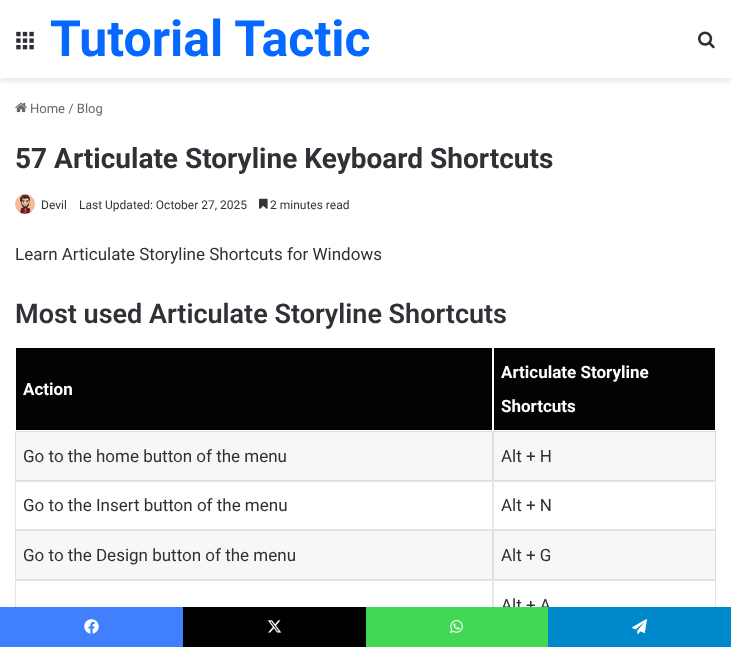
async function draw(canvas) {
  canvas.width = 731;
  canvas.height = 647;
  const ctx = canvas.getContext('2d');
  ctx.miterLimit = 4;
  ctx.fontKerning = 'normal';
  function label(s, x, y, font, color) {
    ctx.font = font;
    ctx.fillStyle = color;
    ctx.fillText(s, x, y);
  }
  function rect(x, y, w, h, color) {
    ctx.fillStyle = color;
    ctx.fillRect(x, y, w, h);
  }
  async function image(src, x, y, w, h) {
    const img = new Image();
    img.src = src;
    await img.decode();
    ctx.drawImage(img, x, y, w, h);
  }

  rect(0, 0, 731, 647, '#fff');
  ctx.save();
  ctx.beginPath();
  ctx.rect(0, 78, 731, 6);
  ctx.clip();
  ctx.fillStyle = '#0000001a';
  ctx.filter = 'blur(3.5px)';
  ctx.beginPath();
  ctx.rect(0, 3, 731, 78);
  ctx.fill();
  ctx.filter = 'none';
  ctx.restore();
  await image('assets/img1.png', 16, 31, 18, 19);
  label('Tutorial Tactic', 50, 56, 'bold 50px Roboto', '#0669ff');
  await image('assets/img2.png', 698, 31, 17, 18);
  await image('assets/img3.png', 15, 102, 12, 11);
  label('Home / Blog', 30, 113, '13px Roboto', '#686868');
  label('57 Articulate Storyline Keyboard Shortcuts', 15, 168, 'bold 28px Roboto', '#2e3136');
  await image('assets/img4.png', 15, 194, 20, 20);
  label('Devil', 41, 209, '12px Roboto', '#353535');
  label('Last Updated: October 27, 2025', 79, 209, '12px Roboto', '#353535');
  await image('assets/img5.png', 259, 198, 9, 11);
  label('2 minutes read', 270, 209, '12px Roboto', '#353535');
  label('Learn Articulate Storyline Shortcuts for Windows', 15, 260, '17px Roboto', '#2e3136');
  label('Most used Articulate Storyline Shortcuts', 15, 323, '600 27px Roboto', '#2e3136');
  rect(16, 348, 476, 82, '#030303');
  label('Action', 23, 395, 'bold 17px Roboto', '#fff');
  rect(494, 348, 221, 82, '#030303');
  label('Articulate Storyline', 501, 378, 'bold 17px Roboto', '#fff');
  label('Shortcuts', 501, 412, 'bold 17px Roboto', '#fff');
  rect(16, 432, 699, 48, '#f7f7f7');
  ctx.strokeStyle = '#dfdfdf';
  ctx.strokeRect(15.5, 431.5, 477, 49);
  label('Go to the home button of the menu', 23, 462, '17px Roboto', '#2e3136');
  ctx.strokeRect(493.5, 431.5, 222, 49);
  label('Alt + H', 501, 462, '17px Roboto', '#2e3136');
  ctx.strokeStyle = '#e6e6e6';
  ctx.strokeRect(15.5, 481.5, 477, 48);
  label('Go to the Insert button of the menu', 23, 511, '17px Roboto', '#2e3136');
  ctx.strokeRect(493.5, 481.5, 222, 48);
  label('Alt + N', 501, 511, '17px Roboto', '#2e3136');
  rect(16, 531, 699, 48, '#f7f7f7');
  ctx.strokeStyle = '#dfdfdf';
  ctx.strokeRect(15.5, 530.5, 477, 49);
  label('Go to the Design button of the menu', 23, 561, '17px Roboto', '#2e3136');
  ctx.strokeRect(493.5, 530.5, 222, 49);
  label('Alt + G', 501, 561, '17px Roboto', '#2e3136');
  ctx.strokeStyle = '#e6e6e6';
  ctx.strokeRect(15.5, 580.5, 477, 48);
  ctx.strokeRect(493.5, 580.5, 222, 48);
  label('Alt + A', 501, 611, '17px Roboto', '#2e3136');
  rect(0, 607, 183, 40, '#4080ff');
  await image('assets/img6.png', 84, 619, 15, 15);
  rect(183, 607, 183, 40, '#000');
  await image('assets/img7.png', 267, 620, 15, 13);
  rect(366, 607, 182, 40, '#43d854');
  await image('assets/img8.png', 450, 620, 13, 13);
  rect(548, 607, 183, 40, '#08c');
  await image('assets/img9.png', 632, 619, 15, 15);
}

draw(document.querySelector('canvas'));
